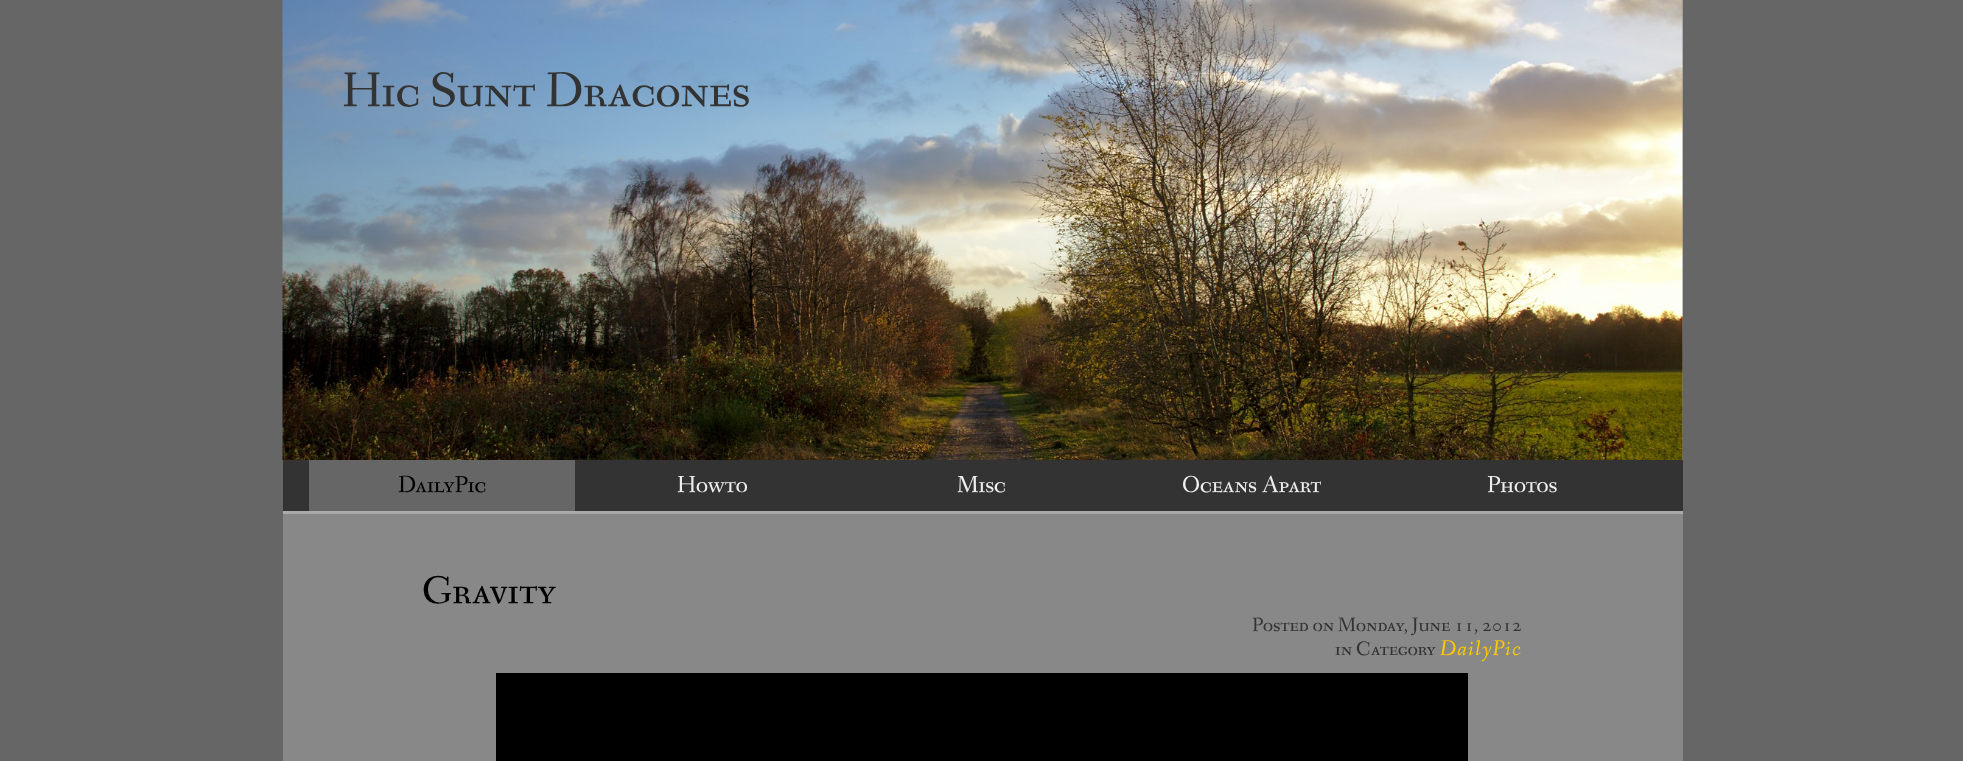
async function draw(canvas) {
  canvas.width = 1963;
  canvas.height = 761;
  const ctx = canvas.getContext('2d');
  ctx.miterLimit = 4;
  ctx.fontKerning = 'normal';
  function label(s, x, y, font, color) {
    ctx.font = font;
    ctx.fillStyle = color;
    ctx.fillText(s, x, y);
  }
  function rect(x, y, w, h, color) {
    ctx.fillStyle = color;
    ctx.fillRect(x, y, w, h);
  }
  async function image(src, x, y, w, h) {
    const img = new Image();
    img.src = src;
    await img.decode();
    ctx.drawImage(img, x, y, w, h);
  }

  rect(0, 0, 1963, 761, '#666');
  rect(283, 0, 1400, 761, '#888');
  await image('assets/img1.png', 282, 0, 1401, 460);
  label('Hic Sunt Dracones', 342, 106, '50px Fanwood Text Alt', '#333');
  rect(283, 460, 1400, 51, '#333');
  rect(283, 511, 1400, 3, '#aaa');
  rect(309, 460, 266, 51, '#666');
  label('DailyPic', 398, 492, '24px Fanwood Text Alt', '#000');
  label('Howto', 677, 492, '24px Fanwood Text Alt', '#eee');
  label('Misc', 957, 492, '24px Fanwood Text Alt', '#eee');
  label('Oceans Apart', 1182, 492, '24px Fanwood Text Alt', '#eee');
  label('Photos', 1487, 492, '24px Fanwood Text Alt', '#eee');
  label('Gravity', 422, 603, '40px Fanwood Text Alt', '#000');
  label('Posted on Monday, June 11, 2012', 1252, 631, '20px Fanwood Text Alt', '#333');
  label('in Category', 1335, 655, '20px Fanwood Text Alt', '#333');
  ctx.letterSpacing = '1.25px';
  label('DailyPic', 1440, 655, 'italic 22px Fanwood Text', '#fdca01');
  rect(496, 673, 972, 88, '#000');
}

draw(document.querySelector('canvas'));
